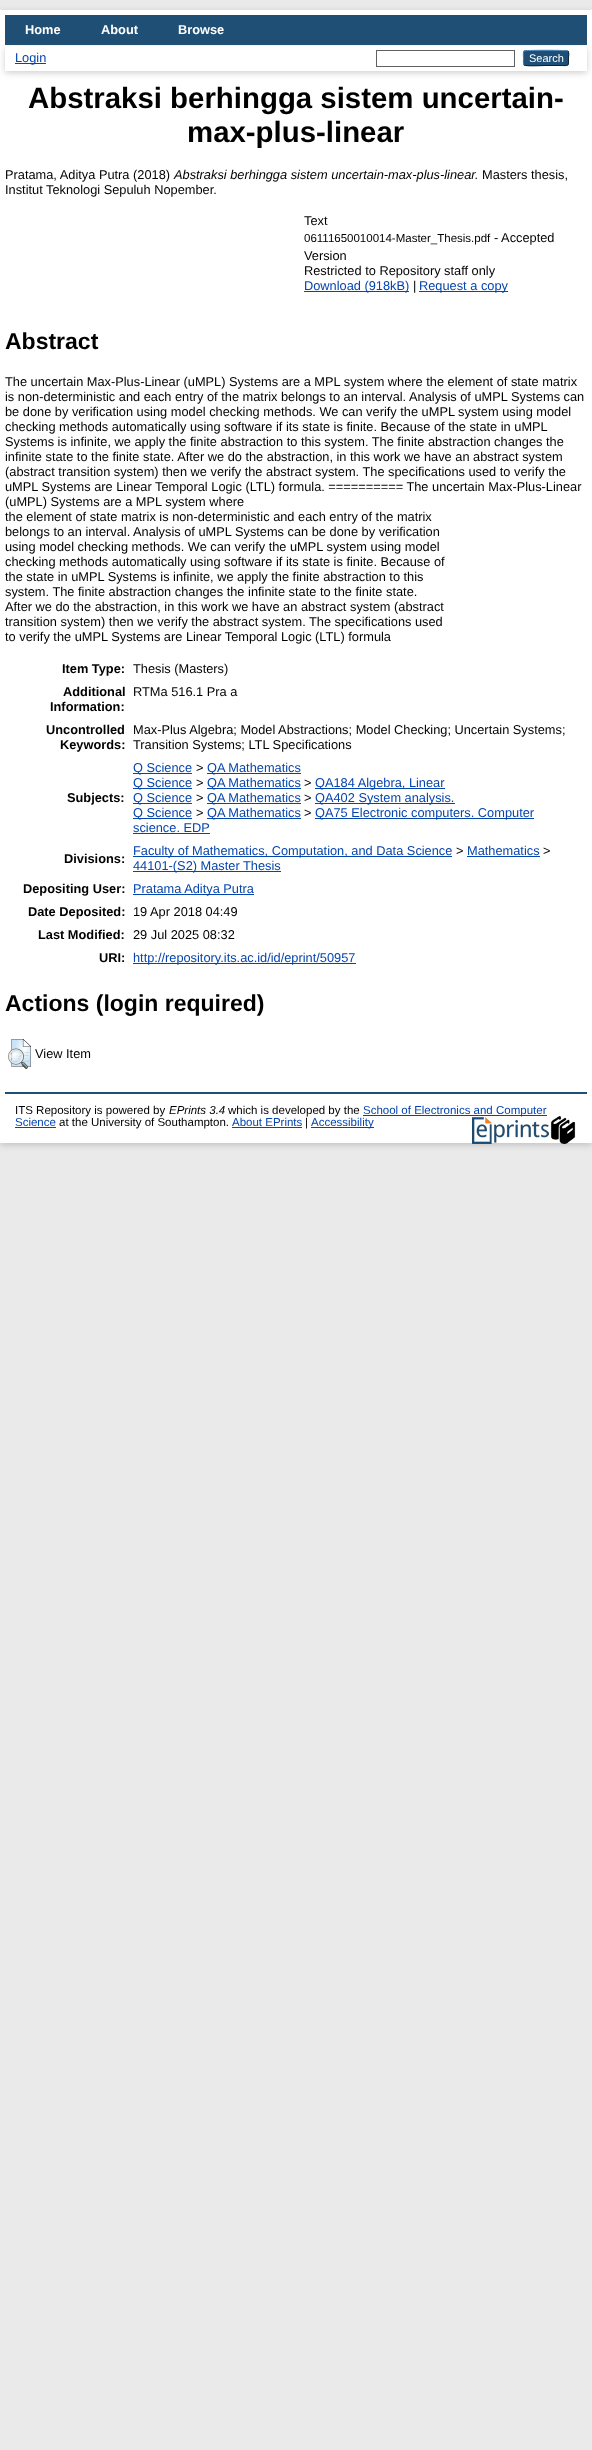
async function draw(canvas) {
  canvas.width = 592;
  canvas.height = 2450;
  const ctx = canvas.getContext('2d');
  ctx.miterLimit = 4;
  ctx.fontKerning = 'normal';
  function label(s, x, y, font, color) {
    ctx.font = font;
    ctx.fillStyle = color;
    ctx.fillText(s, x, y);
  }
  function rect(x, y, w, h, color) {
    ctx.fillStyle = color;
    ctx.fillRect(x, y, w, h);
  }
  function roundedRect(x, y, w, h, r, color) {
    ctx.fillStyle = color;
    ctx.beginPath();
    ctx.roundRect(x, y, w, h, r);
    ctx.fill();
  }
  async function image(src, x, y, w, h) {
    const img = new Image();
    img.src = src;
    await img.decode();
    ctx.drawImage(img, x, y, w, h);
  }
  let path;

  rect(0, 0, 592, 2450, '#eaeaea');
  ctx.fillStyle = '#6464644d';
  ctx.filter = 'blur(3px)';
  ctx.beginPath();
  ctx.rect(0, 12, 592, 1133);
  ctx.fill();
  ctx.filter = 'none';
  rect(0, 10, 592, 1133, '#fff');
  rect(5, 15, 582, 30, '#204f76');
  label('Home', 25, 34, 'bold 12.8px Liberation Sans', '#fff');
  label('About', 101, 34, 'bold 12.8px Liberation Sans', '#fff');
  label('Browse', 178, 34, 'bold 12.8px Liberation Sans', '#fff');
  ctx.fillStyle = '#6464644d';
  ctx.filter = 'blur(3px)';
  ctx.beginPath();
  ctx.rect(5, 48, 582, 25);
  ctx.fill();
  ctx.filter = 'none';
  rect(5, 46, 582, 25, '#fff');
  rect(15, 63, 31, 1, '#0645ad');
  label('Login', 15, 62, '12.8px Liberation Sans', '#0645ad');
  ctx.strokeStyle = '#606060';
  ctx.strokeRect(376.5, 50.5, 138, 16);
  roundedRect(523, 50, 46, 16, 3, '#1f4f76');
  path = new Path2D('M524 51C525.5 50 566.5 50 568 51');
  ctx.strokeStyle = '#5b97c7';
  ctx.stroke(path);
  path = new Path2D('M568 51C569.5 53 568.5 56 568.5 58C568.5 67 569 65.5 559.5 65.5H546C542.5 65.5 526 66.5 524 65');
  ctx.strokeStyle = '#0d2131';
  ctx.stroke(path);
  path = new Path2D('M524 65C523 63.5 523.5 59.5 523.5 58C523.5 56.5 523 52.5 524 51');
  ctx.strokeStyle = '#5287b3';
  ctx.stroke(path);
  label('Search', 529, 62, '11px Liberation Sans', '#fff');
  label('Abstraksi berhingga sistem uncertain-', 28, 108, 'bold 29.4px Liberation Sans', '#000');
  label('max-plus-linear', 187, 142, 'bold 29.4px Liberation Sans', '#000');
  label('Pratama, Aditya Putra (2018)', 5, 179, '12.8px Liberation Sans', '#000');
  label('Abstraksi berhingga sistem uncertain-max-plus-linear.', 174, 179, 'italic 12.8px Liberation Sans', '#000');
  label('Masters thesis,', 482, 179, '12.8px Liberation Sans', '#000');
  label('Institut Teknologi Sepuluh Nopember.', 5, 194, '12.8px Liberation Sans', '#000');
  label('Text', 304, 225, '12.8px Liberation Sans', '#000');
  label('06111650010014-Master_Thesis.pdf', 304, 242, '11.5px Liberation Sans', '#000');
  label('- Accepted', 494, 242, '12.8px Liberation Sans', '#000');
  label('Version', 304, 260, '12.8px Liberation Sans', '#000');
  label('Restricted to Repository staff only', 304, 275, '12.8px Liberation Sans', '#000');
  rect(304, 291, 105, 1, '#0645ad');
  label('Download (918kB)', 304, 290, '12.8px Liberation Sans', '#0645ad');
  label('|', 413, 290, '12.8px Liberation Sans', '#000');
  rect(419, 291, 89, 1, '#0645ad');
  label('Request a copy', 419, 290, '12.8px Liberation Sans', '#0645ad');
  label('Abstract', 5, 349, 'bold 23px Liberation Sans', '#000');
  label('The uncertain Max-Plus-Linear (uMPL) Systems are a MPL system where the element of state matrix', 5, 386, '12.8px Liberation Sans', '#000');
  label('is non-deterministic and each entry of the matrix belongs to an interval. Analysis of uMPL Systems can', 5, 401, '12.8px Liberation Sans', '#000');
  label('be done by verification using model checking methods. We can verify the uMPL system using model', 5, 416, '12.8px Liberation Sans', '#000');
  label('checking methods automatically using software if its state is finite. Because of the state in uMPL', 5, 431, '12.8px Liberation Sans', '#000');
  label('Systems is infinite, we apply the finite abstraction to this system. The finite abstraction changes the', 5, 446, '12.8px Liberation Sans', '#000');
  label('infinite state to the finite state. After we do the abstraction, in this work we have an abstract system', 5, 461, '12.8px Liberation Sans', '#000');
  label('(abstract transition system) then we verify the abstract system. The specifications used to verify the', 5, 476, '12.8px Liberation Sans', '#000');
  label('uMPL Systems are Linear Temporal Logic (LTL) formula. ========== The uncertain Max-Plus-Linear', 5, 491, '12.8px Liberation Sans', '#000');
  label('(uMPL) Systems are a MPL system where', 5, 506, '12.8px Liberation Sans', '#000');
  label('the element of state matrix is non-deterministic and each entry of the matrix', 5, 521, '12.8px Liberation Sans', '#000');
  label('belongs to an interval.', 5, 536, '12.8px Liberation Sans', '#000');
  label('Analysis of uMPL Systems can be done by verification', 133, 536, '12.8px Liberation Sans', '#000');
  label('using model checking methods. We can verify the uMPL system using model', 5, 551, '12.8px Liberation Sans', '#000');
  label('checking methods automatically using software if its state is finite. Because of', 5, 566, '12.8px Liberation Sans', '#000');
  label('the state in uMPL Systems is infinite, we apply the finite abstraction to this', 5, 581, '12.8px Liberation Sans', '#000');
  label('system. The finite abstraction changes the infinite state to the finite state.', 5, 596, '12.8px Liberation Sans', '#000');
  label('After we do the abstraction, in this work we have an abstract system (abstract', 5, 611, '12.8px Liberation Sans', '#000');
  label('transition system) then we verify the abstract system.', 5, 626, '12.8px Liberation Sans', '#000');
  label('The specifications used', 309, 626, '12.8px Liberation Sans', '#000');
  label('to verify the uMPL Systems are Linear Temporal Logic (LTL) formula', 5, 641, '12.8px Liberation Sans', '#000');
  label('Item Type:', 62, 673, 'bold 12.8px Liberation Sans', '#000');
  label('Thesis (Masters)', 133, 673, '12.8px Liberation Sans', '#000');
  label('Additional', 63, 696, 'bold 12.8px Liberation Sans', '#000');
  label('Information:', 50, 711, 'bold 12.8px Liberation Sans', '#000');
  label('RTMa 516.1 Pra a', 133, 696, '12.8px Liberation Sans', '#000');
  label('Uncontrolled', 46, 734, 'bold 12.8px Liberation Sans', '#000');
  label('Keywords:', 60, 749, 'bold 12.8px Liberation Sans', '#000');
  label('Max-Plus Algebra; Model Abstractions; Model Checking; Uncertain Systems;', 133, 734, '12.8px Liberation Sans', '#000');
  label('Transition Systems; LTL Specifications', 133, 749, '12.8px Liberation Sans', '#000');
  label('Subjects:', 67, 802, 'bold 12.8px Liberation Sans', '#000');
  rect(133, 773, 59, 1, '#0645ad');
  label('Q Science', 133, 772, '12.8px Liberation Sans', '#0645ad');
  label('>', 196, 772, '12.8px Liberation Sans', '#000');
  rect(207, 773, 94, 1, '#0645ad');
  label('QA Mathematics', 207, 772, '12.8px Liberation Sans', '#0645ad');
  rect(133, 788, 59, 1, '#0645ad');
  label('Q Science', 133, 787, '12.8px Liberation Sans', '#0645ad');
  label('>', 196, 787, '12.8px Liberation Sans', '#000');
  rect(207, 788, 94, 1, '#0645ad');
  label('QA Mathematics', 207, 787, '12.8px Liberation Sans', '#0645ad');
  label('>', 304, 787, '12.8px Liberation Sans', '#000');
  rect(315, 788, 130, 1, '#0645ad');
  label('QA184 Algebra, Linear', 315, 787, '12.8px Liberation Sans', '#0645ad');
  rect(133, 803, 59, 1, '#0645ad');
  label('Q Science', 133, 802, '12.8px Liberation Sans', '#0645ad');
  label('>', 196, 802, '12.8px Liberation Sans', '#000');
  rect(207, 803, 94, 1, '#0645ad');
  label('QA Mathematics', 207, 802, '12.8px Liberation Sans', '#0645ad');
  label('>', 304, 802, '12.8px Liberation Sans', '#000');
  rect(315, 803, 140, 1, '#0645ad');
  label('QA402 System analysis.', 315, 802, '12.8px Liberation Sans', '#0645ad');
  rect(133, 818, 59, 1, '#0645ad');
  label('Q Science', 133, 817, '12.8px Liberation Sans', '#0645ad');
  label('>', 196, 817, '12.8px Liberation Sans', '#000');
  rect(207, 818, 94, 1, '#0645ad');
  label('QA Mathematics', 207, 817, '12.8px Liberation Sans', '#0645ad');
  label('>', 304, 817, '12.8px Liberation Sans', '#000');
  rect(315, 818, 219, 1, '#0645ad');
  label('QA75 Electronic computers. Computer', 315, 817, '12.8px Liberation Sans', '#0645ad');
  label('science. EDP', 133, 832, '12.8px Liberation Sans', '#0645ad');
  rect(133, 833, 77, 1, '#0645ad');
  label('Divisions:', 64, 863, 'bold 12.8px Liberation Sans', '#000');
  rect(133, 856, 319, 1, '#0645ad');
  label('Faculty of Mathematics, Computation, and Data Science', 133, 855, '12.8px Liberation Sans', '#0645ad');
  label('>', 456, 855, '12.8px Liberation Sans', '#000');
  label('Mathematics', 467, 855, '12.8px Liberation Sans', '#0645ad');
  rect(467, 856, 73, 1, '#0645ad');
  label('>', 543, 855, '12.8px Liberation Sans', '#000');
  rect(133, 871, 148, 1, '#0645ad');
  label('44101-(S2) Master Thesis', 133, 870, '12.8px Liberation Sans', '#0645ad');
  label('Depositing User:', 23, 893, 'bold 12.8px Liberation Sans', '#000');
  rect(133, 894, 121, 1, '#0645ad');
  label('Pratama Aditya Putra', 133, 893, '12.8px Liberation Sans', '#0645ad');
  label('Date Deposited:', 28, 916, 'bold 12.8px Liberation Sans', '#000');
  label('19 Apr 2018 04:49', 133, 916, '12.8px Liberation Sans', '#000');
  label('Last Modified:', 38, 939, 'bold 12.8px Liberation Sans', '#000');
  label('29 Jul 2025 08:32', 133, 939, '12.8px Liberation Sans', '#000');
  label('URI:', 99, 962, 'bold 12.8px Liberation Sans', '#000');
  rect(133, 963, 223, 1, '#0645ad');
  label('http://repository.its.ac.id/id/eprint/50957', 133, 962, '12.8px Liberation Sans', '#0645ad');
  label('Actions (login required)', 5, 1011, 'bold 23px Liberation Sans', '#000');
  await image('assets/img1.png', 8, 1039, 23, 30);
  label('View Item', 35, 1058, '12.8px Liberation Sans', '#000');
  rect(5, 1092, 582, 2, '#204f76');
  label('ITS Repository is powered by', 15, 1114, '11.5px Liberation Sans', '#000');
  label('EPrints 3.4', 169, 1114, 'italic 11.5px Liberation Sans', '#000');
  label('which is developed by the', 228, 1114, '11.5px Liberation Sans', '#000');
  rect(363, 1115, 184, 1, '#0645ad');
  label('School of Electronics and Computer', 363, 1114, '11.5px Liberation Sans', '#0645ad');
  label('Science', 15, 1126, '11.5px Liberation Sans', '#0645ad');
  rect(15, 1127, 41, 1, '#0645ad');
  label('at the University of Southampton.', 59, 1126, '11.5px Liberation Sans', '#000');
  label('About EPrints', 232, 1126, '11.5px Liberation Sans', '#0645ad');
  rect(232, 1127, 70, 1, '#0645ad');
  label('|', 305, 1126, '11.5px Liberation Sans', '#000');
  rect(311, 1127, 63, 1, '#0645ad');
  label('Accessibility', 311, 1126, '11.5px Liberation Sans', '#0645ad');
  await image('assets/img2.png', 472, 1117, 77, 27);
  await image('assets/img3.png', 550, 1116, 26, 28);
}

draw(document.querySelector('canvas'));
